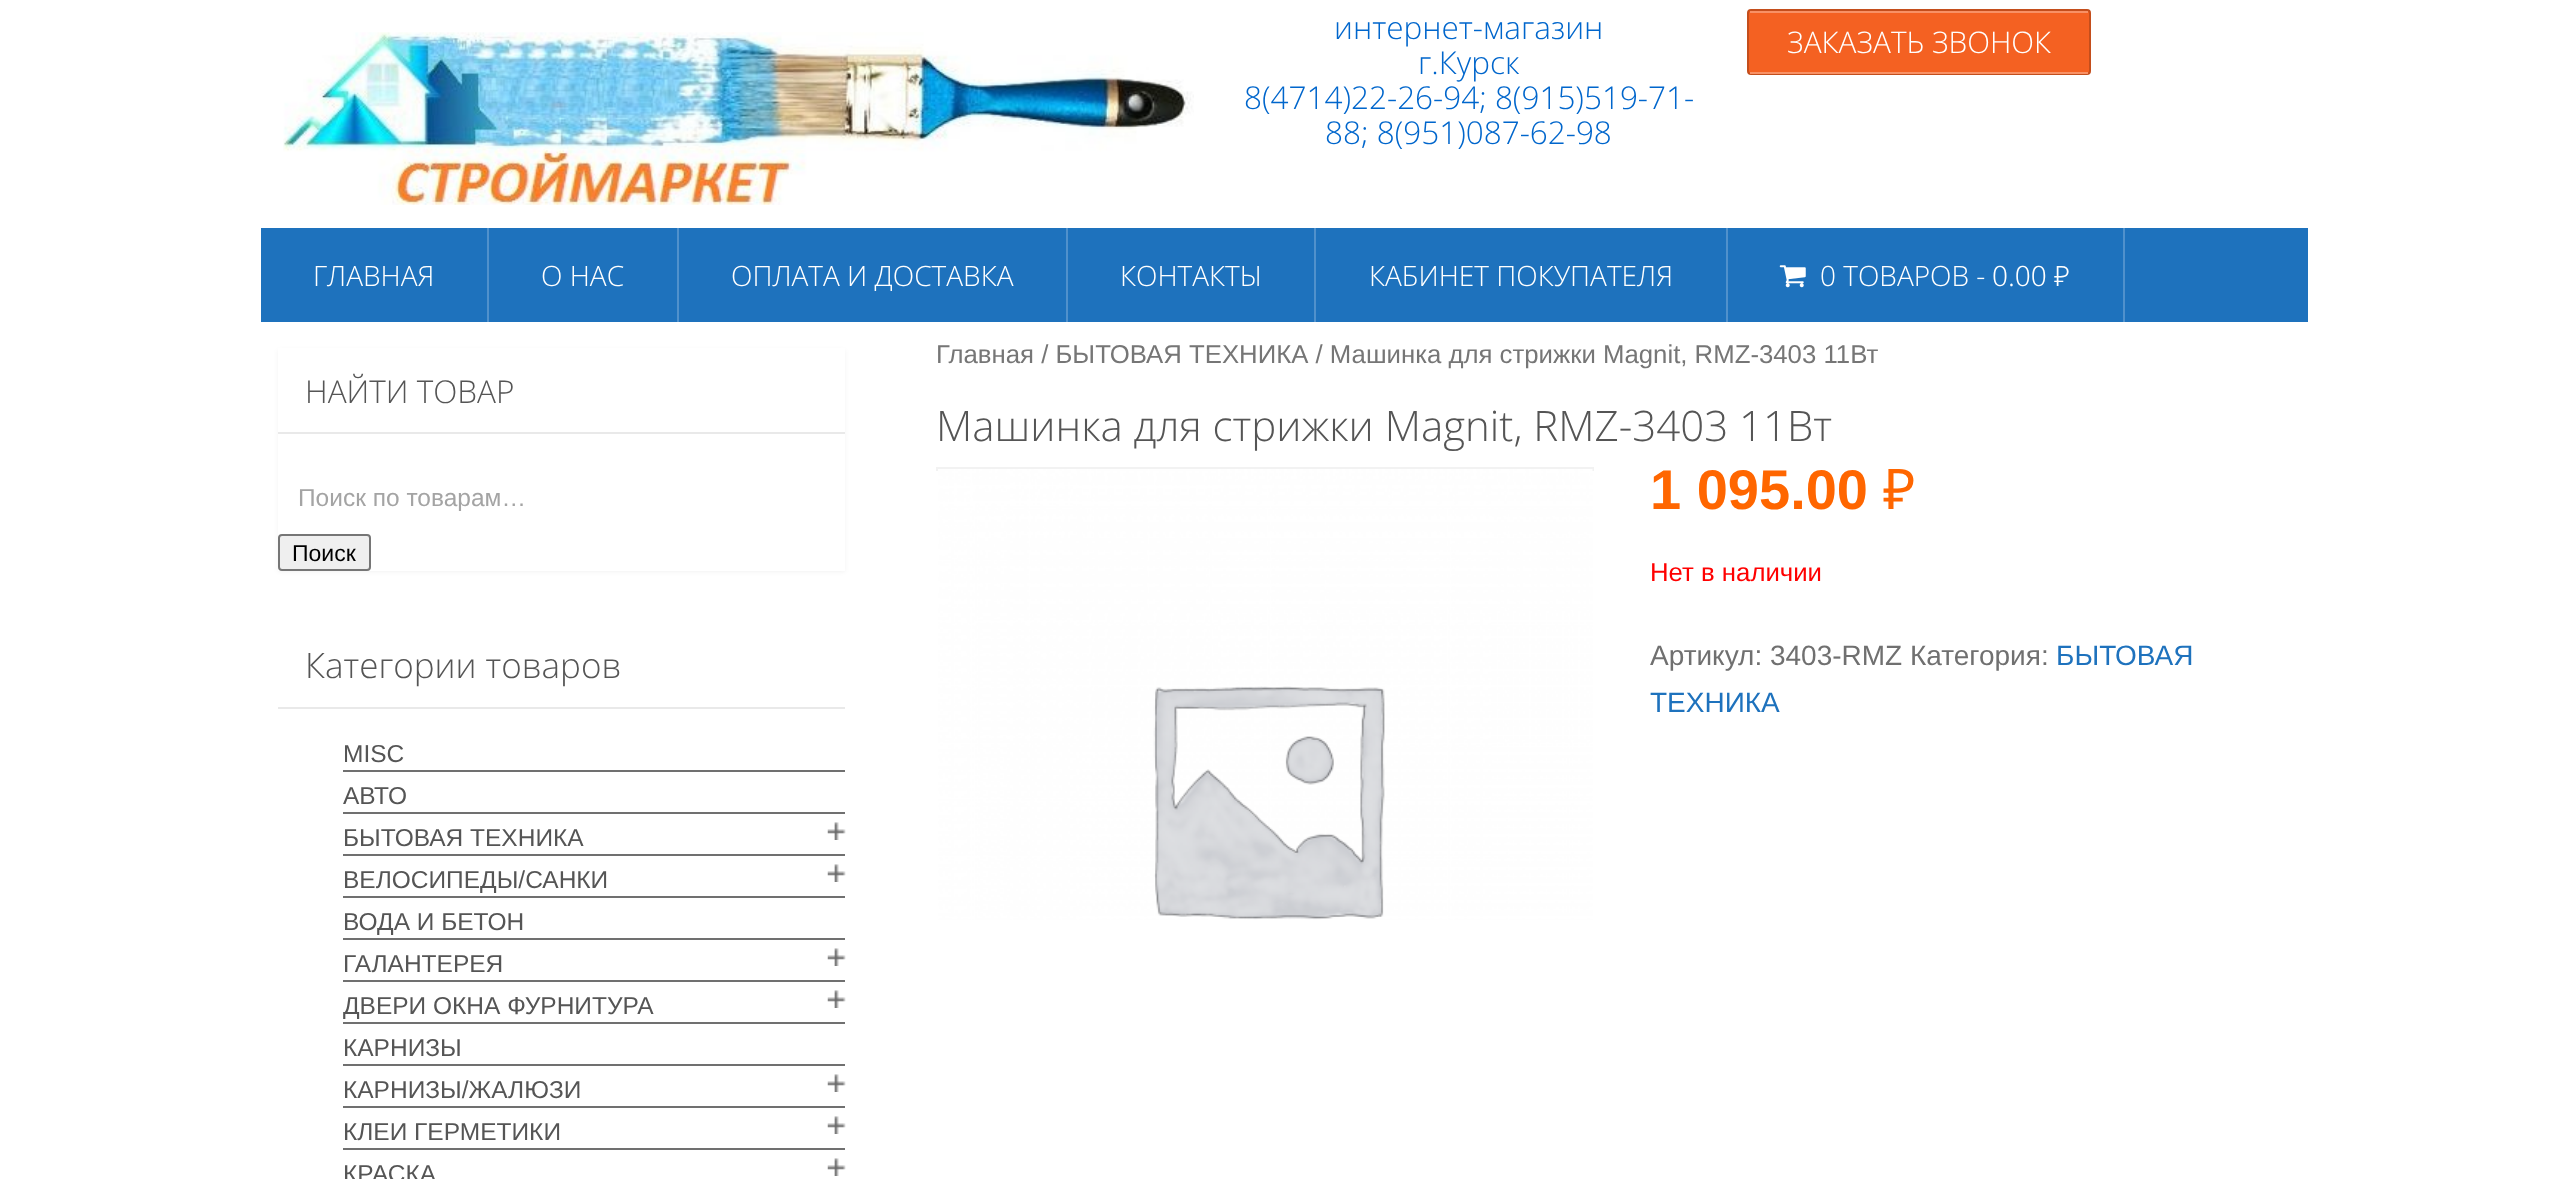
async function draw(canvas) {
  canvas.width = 2569;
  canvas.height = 1179;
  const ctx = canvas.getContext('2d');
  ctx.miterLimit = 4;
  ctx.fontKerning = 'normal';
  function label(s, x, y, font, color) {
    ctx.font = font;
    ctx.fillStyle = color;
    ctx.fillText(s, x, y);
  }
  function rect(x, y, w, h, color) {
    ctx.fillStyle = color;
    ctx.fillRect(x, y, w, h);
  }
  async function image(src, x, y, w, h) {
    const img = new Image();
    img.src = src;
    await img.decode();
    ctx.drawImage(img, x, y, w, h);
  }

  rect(0, 0, 2569, 1179, '#fff');
  await image('assets/img1.png', 283, 32, 911, 173);
  label('интернет-магазин', 1334, 39, '300 31.5px Open Sans', '#06c');
  label('г.Курск', 1418, 74, '300 31.5px Open Sans', '#06c');
  label('8(4714)22-26-94; 8(915)519-71-', 1244, 109, '300 31.5px Open Sans', '#06c');
  label('88; 8(951)087-62-98', 1325, 144, '300 31.5px Open Sans', '#06c');
  ctx.fillStyle = '#f46122';
  ctx.beginPath();
  ctx.roundRect(1748, 10, 342, 64, 3);
  ctx.fill();
  ctx.strokeStyle = '#c44e1c';
  ctx.lineWidth = 2;
  ctx.stroke();
  rect(1750, 11, 338, 2, '#f89165');
  rect(1750, 72, 338, 2, '#f89165');
  label('ЗАКАЗАТЬ ЗВОНОК', 1787, 53, '300 29.75px Open Sans', '#fff');
  rect(261, 228, 2047, 94, '#1e72bd');
  rect(487, 228, 2, 94, '#5091cc');
  label('ГЛАВНАЯ', 313, 286, '300 28px Open Sans', '#fff');
  rect(677, 228, 2, 94, '#5091cc');
  label('О НАС', 541, 286, '300 28px Open Sans', '#fff');
  rect(1066, 228, 2, 94, '#5091cc');
  label('ОПЛАТА И ДОСТАВКА', 731, 286, '300 28px Open Sans', '#fff');
  rect(1314, 228, 2, 94, '#5091cc');
  label('КОНТАКТЫ', 1120, 286, '300 28px Open Sans', '#fff');
  rect(1726, 228, 2, 94, '#5091cc');
  label('КАБИНЕТ ПОКУПАТЕЛЯ', 1369, 286, '300 28px Open Sans', '#fff');
  rect(2123, 228, 2, 94, '#5091cc');
  await image('assets/img2.png', 1779, 265, 27, 23);
  label('0 ТОВАРОВ -', 1820, 286, '300 28px Open Sans', '#fff');
  label('0.00 ₽', 1992, 286, '300 28px Noto Sans', '#fff');
  ctx.fillStyle = '#0000000d';
  ctx.filter = 'blur(2px)';
  ctx.beginPath();
  ctx.rect(278, 350, 567, 222);
  ctx.fill();
  ctx.filter = 'none';
  rect(278, 348, 567, 223, '#fff');
  rect(278, 432, 567, 2, '#e9e9e9');
  label('НАЙТИ ТОВАР', 305, 403, '300 31.5px Open Sans', '#555');
  label('Поиск по товарам…', 298, 506, '24.5px Liberation Sans', '#a4a4a4');
  ctx.fillStyle = '#efefef';
  ctx.beginPath();
  ctx.roundRect(279, 535, 91, 35, 3);
  ctx.fill();
  ctx.strokeStyle = '#767676';
  ctx.stroke();
  label('Поиск', 292, 561, '23px Liberation Sans', '#000');
  rect(278, 707, 567, 2, '#e9e9e9');
  label('Категории товаров', 305, 678, '300 35px Open Sans', '#555');
  rect(343, 770, 502, 2, '#707070');
  label('MISC', 343, 762, '24.5px Liberation Sans', '#555');
  rect(343, 812, 502, 2, '#707070');
  label('АВТО', 343, 804, '24.5px Liberation Sans', '#555');
  rect(343, 854, 502, 2, '#707070');
  label('БЫТОВАЯ ТЕХНИКА', 343, 846, '24.5px Liberation Sans', '#555');
  await image('assets/img3.png', 827, 822, 19, 18);
  rect(343, 896, 502, 2, '#707070');
  label('ВЕЛОСИПЕДЫ/САНКИ', 343, 888, '24.5px Liberation Sans', '#555');
  await image('assets/img3.png', 827, 864, 19, 18);
  rect(343, 938, 502, 2, '#707070');
  label('ВОДА И БЕТОН', 343, 930, '24.5px Liberation Sans', '#555');
  rect(343, 980, 502, 2, '#707070');
  label('ГАЛАНТЕРЕЯ', 343, 972, '24.5px Liberation Sans', '#555');
  await image('assets/img3.png', 827, 948, 19, 18);
  rect(343, 1022, 502, 2, '#707070');
  label('ДВЕРИ ОКНА ФУРНИТУРА', 343, 1014, '24.5px Liberation Sans', '#555');
  await image('assets/img3.png', 827, 990, 19, 18);
  rect(343, 1064, 502, 2, '#707070');
  label('КАРНИЗЫ', 343, 1056, '24.5px Liberation Sans', '#555');
  rect(343, 1106, 502, 2, '#707070');
  label('КАРНИЗЫ/ЖАЛЮЗИ', 343, 1098, '24.5px Liberation Sans', '#555');
  await image('assets/img3.png', 827, 1074, 19, 18);
  rect(343, 1148, 502, 2, '#707070');
  label('КЛЕИ ГЕРМЕТИКИ', 343, 1140, '24.5px Liberation Sans', '#555');
  await image('assets/img3.png', 827, 1116, 19, 18);
  label('КРАСКА', 343, 1182, '24.5px Liberation Sans', '#555');
  await image('assets/img3.png', 827, 1158, 19, 18);
  label('Главная / БЫТОВАЯ ТЕХНИКА / Машинка для стрижки Magnit, RMZ-3403 11Вт', 936, 363, '25.75px Liberation Sans', '#767676');
  label('Машинка для стрижки Magnit, RMZ-3403 11Вт', 936, 441, '300 42px Open Sans', '#555');
  rect(936, 467, 658, 4, '#f2f2f2');
  await image('assets/img4.png', 938, 469, 655, 451);
  label('1 095.00', 1650, 509, 'bold 56px Liberation Sans', '#f60');
  label('₽', 1883, 509, '56px Noto Sans', '#f60');
  label('Нет в наличии', 1650, 581, '25.75px Liberation Sans', '#f00');
  label('Артикул: 3403-RMZ Категория:', 1650, 665, '28px Liberation Sans', '#707070');
  label('БЫТОВАЯ', 2056, 665, '28px Liberation Sans', '#1e72bd');
  label('ТЕХНИКА', 1650, 712, '28px Liberation Sans', '#1e72bd');
}

draw(document.querySelector('canvas'));
